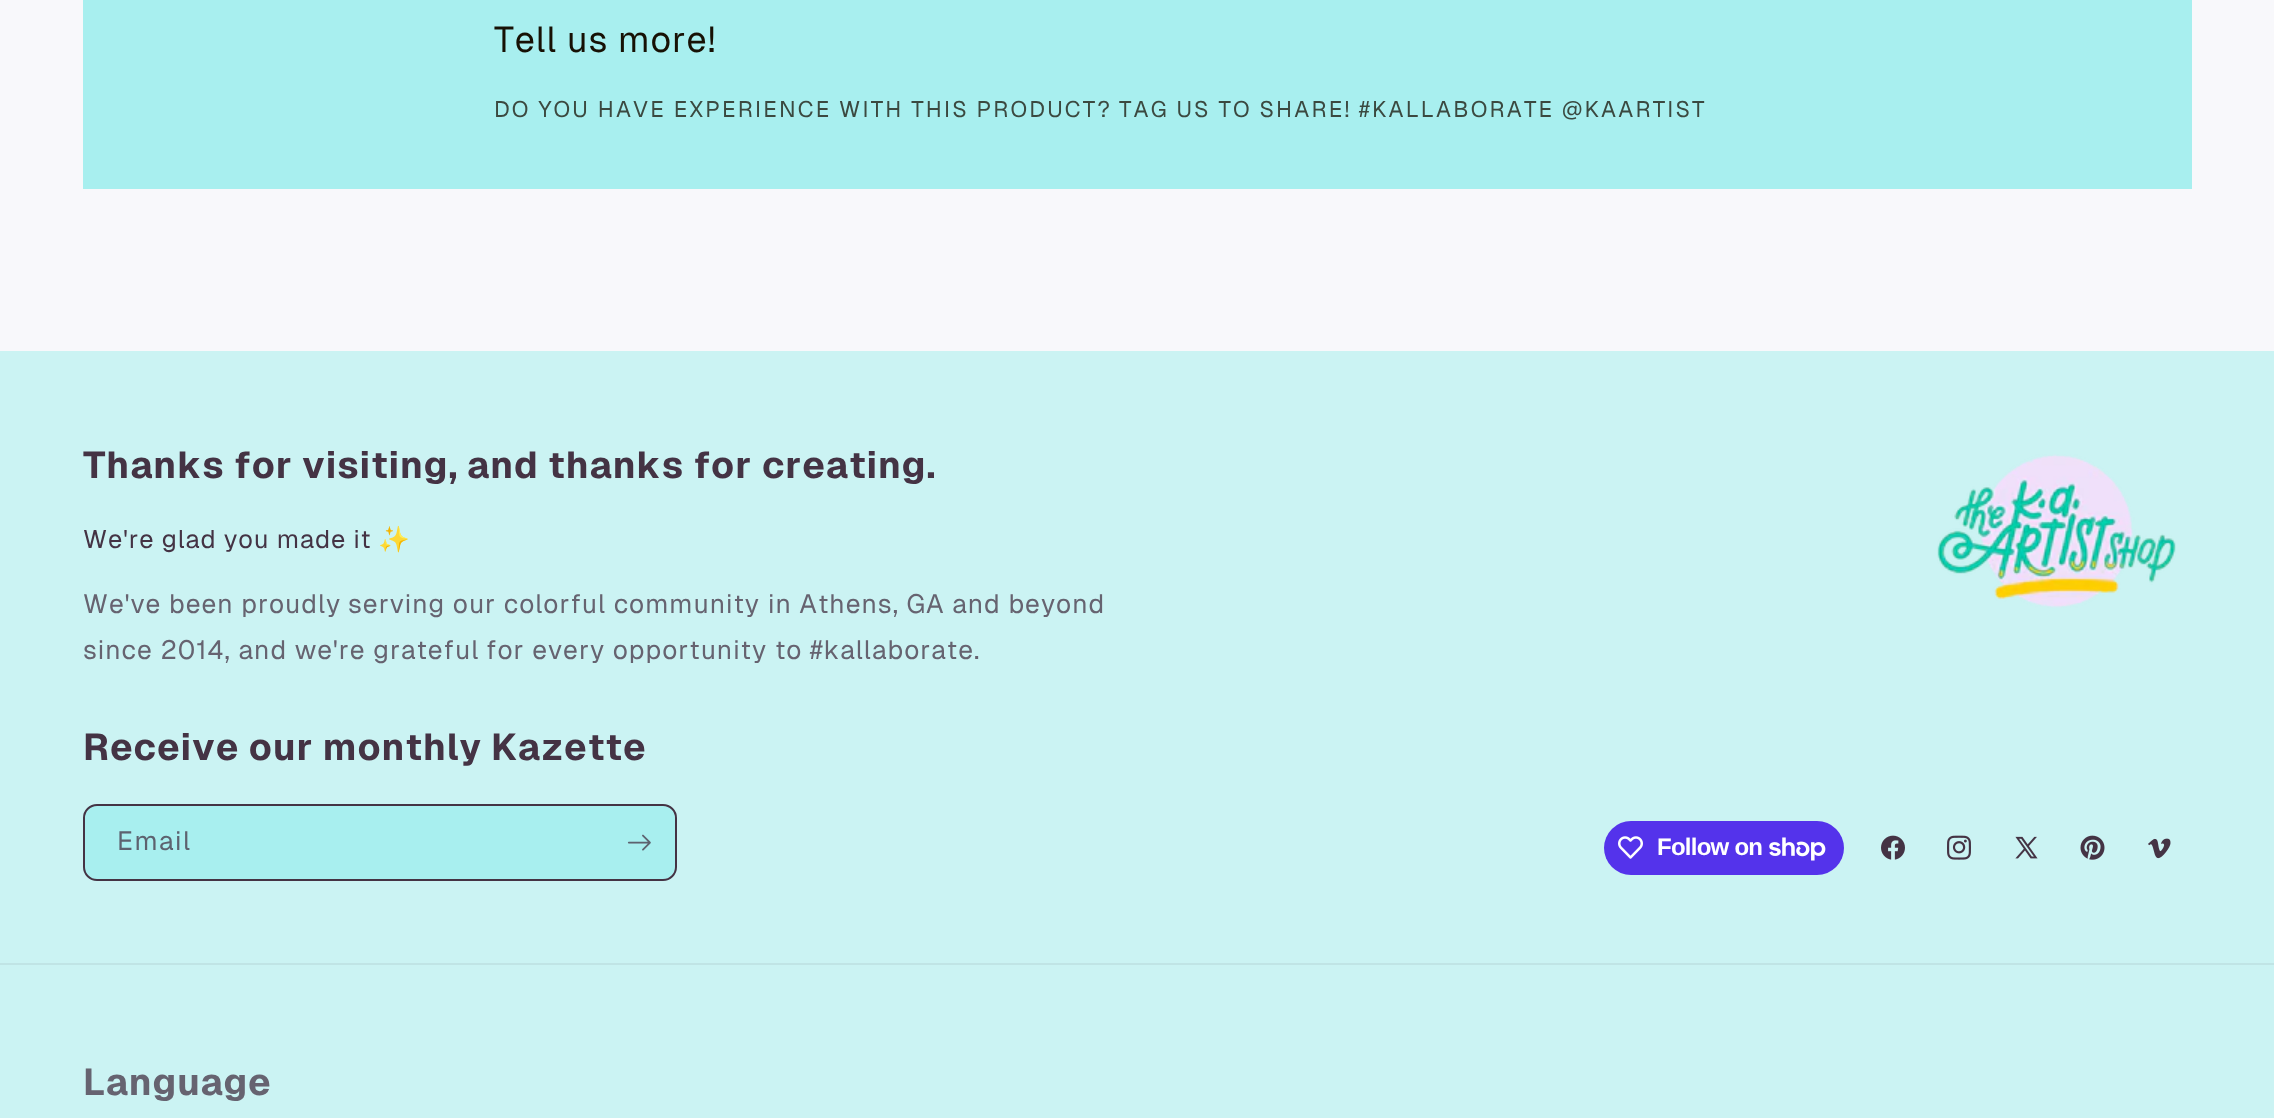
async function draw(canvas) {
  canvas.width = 2274;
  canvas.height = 1118;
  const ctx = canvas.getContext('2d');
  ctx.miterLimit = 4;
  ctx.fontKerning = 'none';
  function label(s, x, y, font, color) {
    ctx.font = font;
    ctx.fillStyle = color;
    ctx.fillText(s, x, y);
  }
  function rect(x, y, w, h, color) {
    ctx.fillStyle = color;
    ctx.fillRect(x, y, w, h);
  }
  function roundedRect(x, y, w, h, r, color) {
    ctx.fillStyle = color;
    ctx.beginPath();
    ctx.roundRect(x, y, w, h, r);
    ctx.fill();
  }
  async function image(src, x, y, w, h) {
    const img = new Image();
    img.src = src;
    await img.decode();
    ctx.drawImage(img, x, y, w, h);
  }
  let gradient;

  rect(0, 0, 2274, 1118, '#f8f8fb');
  gradient = ctx.createLinearGradient(2080, 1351, 194, -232);
  gradient.addColorStop(1, '#a8efef');
  gradient.addColorStop(1, '#fffcff');
  ctx.fillStyle = gradient;
  ctx.fillRect(83, 0, 2109, 189);
  ctx.letterSpacing = '0.9px';
  label('Tell us more!', 494, 52, '36px Geist', '#171105');
  ctx.letterSpacing = '2.15px';
  label('DO YOU HAVE EXPERIENCE', 494, 117, '22.5px Geist', '#3b4940');
  label('WITH THIS PRODUCT?', 839, 117, '22.5px Geist', '#3b4940');
  label('TAG US TO SHARE!', 1119, 117, '22.5px Geist', '#3b4940');
  label('#KALLABORATE', 1359, 117, '22.5px Geist', '#3b4940');
  label('@KAARTIST', 1562, 117, '22.5px Geist', '#3b4940');
  gradient = ctx.createLinearGradient(309, -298, 1965, 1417);
  gradient.addColorStop(1, '#cbf3f3');
  gradient.addColorStop(1, '#546');
  ctx.fillStyle = gradient;
  ctx.fillRect(0, 351, 2274, 767);
  ctx.letterSpacing = '0.9px';
  label('Thanks for visiting,', 83, 478, 'bold 37.5px Geist', '#434');
  label('and thanks for', 467, 478, 'bold 37.5px Geist', '#434');
  label('creating.', 762, 478, 'bold 37.5px Geist', '#434');
  label('We\'re glad you made it', 83, 548, '25.5px Geist', '#434');
  label('✨', 378, 548, '25.5px Noto Color Emoji', '#434');
  ctx.letterSpacing = '1px';
  label('We\'ve been proudly', 83, 613, '26.4px Geist', '#666370');
  label('serving our colorful community', 348, 613, '26.4px Geist', '#666370');
  label('in Athens, GA and beyond', 768, 613, '26.4px Geist', '#666370');
  label('since 2014, and we\'re grateful', 83, 659, '26.4px Geist', '#666370');
  label('for every opportunity', 486, 659, '26.4px Geist', '#666370');
  label('to #kallaborate.', 775, 659, '26.4px Geist', '#666370');
  await image('assets/img1.png', 1937, 454, 239, 154);
  ctx.letterSpacing = '0.9px';
  label('Receive our monthly', 83, 760, 'bold 37.5px Geist', '#434');
  label('Kazette', 491, 760, 'bold 37.5px Geist', '#434');
  roundedRect(84, 806, 591, 73, 12, '#a8efef');
  ctx.beginPath();
  ctx.roundRect(84, 805, 592, 75, 13);
  ctx.strokeStyle = '#434';
  ctx.lineWidth = 2;
  ctx.stroke();
  ctx.letterSpacing = '1.5px';
  label('Email', 117, 850, '26.4px Geist', '#5d626f');
  await image('assets/img2.png', 627, 834, 24, 17);
  roundedRect(1604, 821, 240, 54, 27, '#5433eb');
  await image('assets/img3.png', 1618, 836, 25, 23);
  ctx.letterSpacing = '-0.75px';
  label('Follow on', 1657, 855, 'bold 24px Liberation Sans', '#fff');
  await image('assets/img4.png', 1769, 837, 57, 24);
  await image('assets/img5.png', 1881, 835, 24, 25);
  await image('assets/img6.png', 1947, 835, 24, 25);
  await image('assets/img7.png', 2015, 836, 23, 23);
  await image('assets/img8.png', 2080, 835, 25, 25);
  await image('assets/img9.png', 2148, 838, 23, 21);
  rect(0, 963, 2274, 2, '#c0e4e5');
  ctx.letterSpacing = '0.75px';
  label('Language', 83, 1095, 'bold 37.5px Geist', '#666370');
}

draw(document.querySelector('canvas'));
